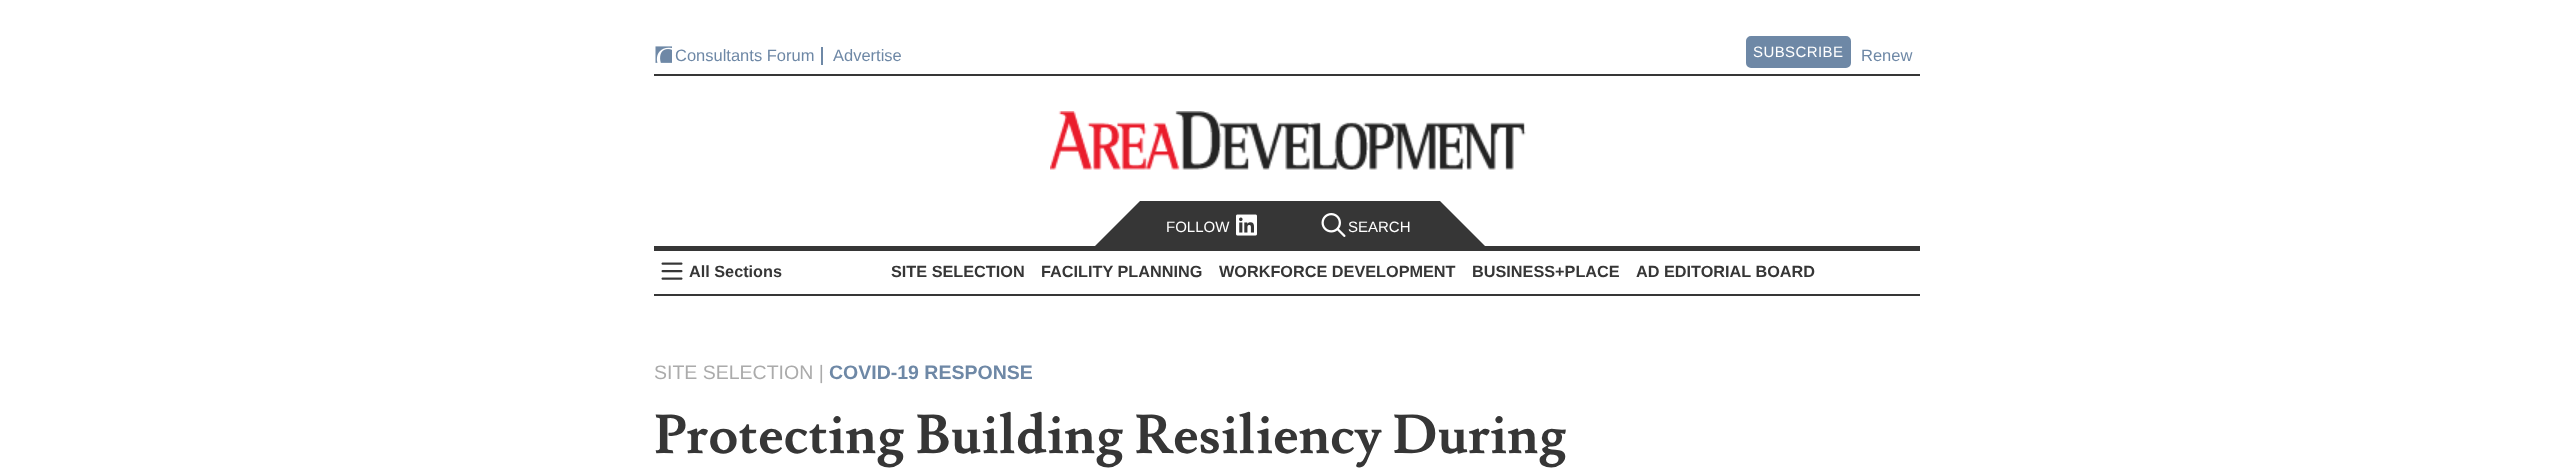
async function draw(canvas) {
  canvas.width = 2574;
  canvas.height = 476;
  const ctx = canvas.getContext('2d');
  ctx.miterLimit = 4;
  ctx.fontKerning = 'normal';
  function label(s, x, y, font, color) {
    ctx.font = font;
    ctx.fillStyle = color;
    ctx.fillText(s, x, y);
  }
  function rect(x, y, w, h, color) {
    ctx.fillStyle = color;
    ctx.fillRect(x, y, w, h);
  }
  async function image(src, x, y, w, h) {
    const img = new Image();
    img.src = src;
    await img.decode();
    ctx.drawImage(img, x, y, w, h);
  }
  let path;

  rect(0, 0, 2574, 476, '#fff');
  rect(821, 47, 2, 18, '#6e88a6');
  await image('assets/img1.png', 655, 46, 17, 17);
  label('Consultants Forum', 675, 61, '16.5px Liberation Sans', '#6e88a6');
  label('Advertise', 833, 61, '16.5px Liberation Sans', '#6e88a6');
  ctx.beginPath();
  ctx.roundRect(1747, 37, 103, 30, 4);
  ctx.fill();
  ctx.strokeStyle = '#6e88a6';
  ctx.lineWidth = 2;
  ctx.stroke();
  ctx.letterSpacing = '0.4px';
  label('SUBSCRIBE', 1753, 57, '15px Liberation Sans', '#fff');
  ctx.letterSpacing = '0px';
  label('Renew', 1861, 61, '16.5px Liberation Sans', '#6e88a6');
  rect(654, 74, 1266, 2, '#363636');
  rect(654, 246, 1266, 5, '#363636');
  await image('assets/img2.png', 1050, 111, 476, 59);
  rect(654, 294, 1266, 2, '#363636');
  path = new Path2D('M1485 246H1095L1140 201H1440Z');
  ctx.fill(path);
  label('FOLLOW', 1166, 232, '15px Liberation Sans', '#fff');
  await image('assets/img3.png', 1236, 214, 21, 22);
  await image('assets/img4.png', 1321, 213, 25, 24);
  label('SEARCH', 1348, 232, '15px Liberation Sans', '#fff');
  await image('assets/img5.png', 661, 262, 22, 18);
  label('All Sections', 689, 277, 'bold 16.25px Liberation Sans', '#363636');
  label('SITE SELECTION', 891, 277, 'bold 16.25px Liberation Sans', '#363636');
  label('FACILITY PLANNING', 1041, 277, 'bold 16.25px Liberation Sans', '#363636');
  label('WORKFORCE DEVELOPMENT', 1219, 277, 'bold 16.25px Liberation Sans', '#363636');
  label('BUSINESS+PLACE', 1472, 277, 'bold 16.25px Liberation Sans', '#363636');
  label('AD EDITORIAL BOARD', 1636, 277, 'bold 16.25px Liberation Sans', '#363636');
  label('SITE SELECTION |', 654, 379, '19.5px Liberation Sans', '#ababab');
  label('COVID-19 RESPONSE', 829, 379, 'bold 19.5px Liberation Sans', '#6e88a6');
  label('Protecting Building Resiliency During', 654, 453, 'bold 54px Lusitana', '#363636');
}

draw(document.querySelector('canvas'));
